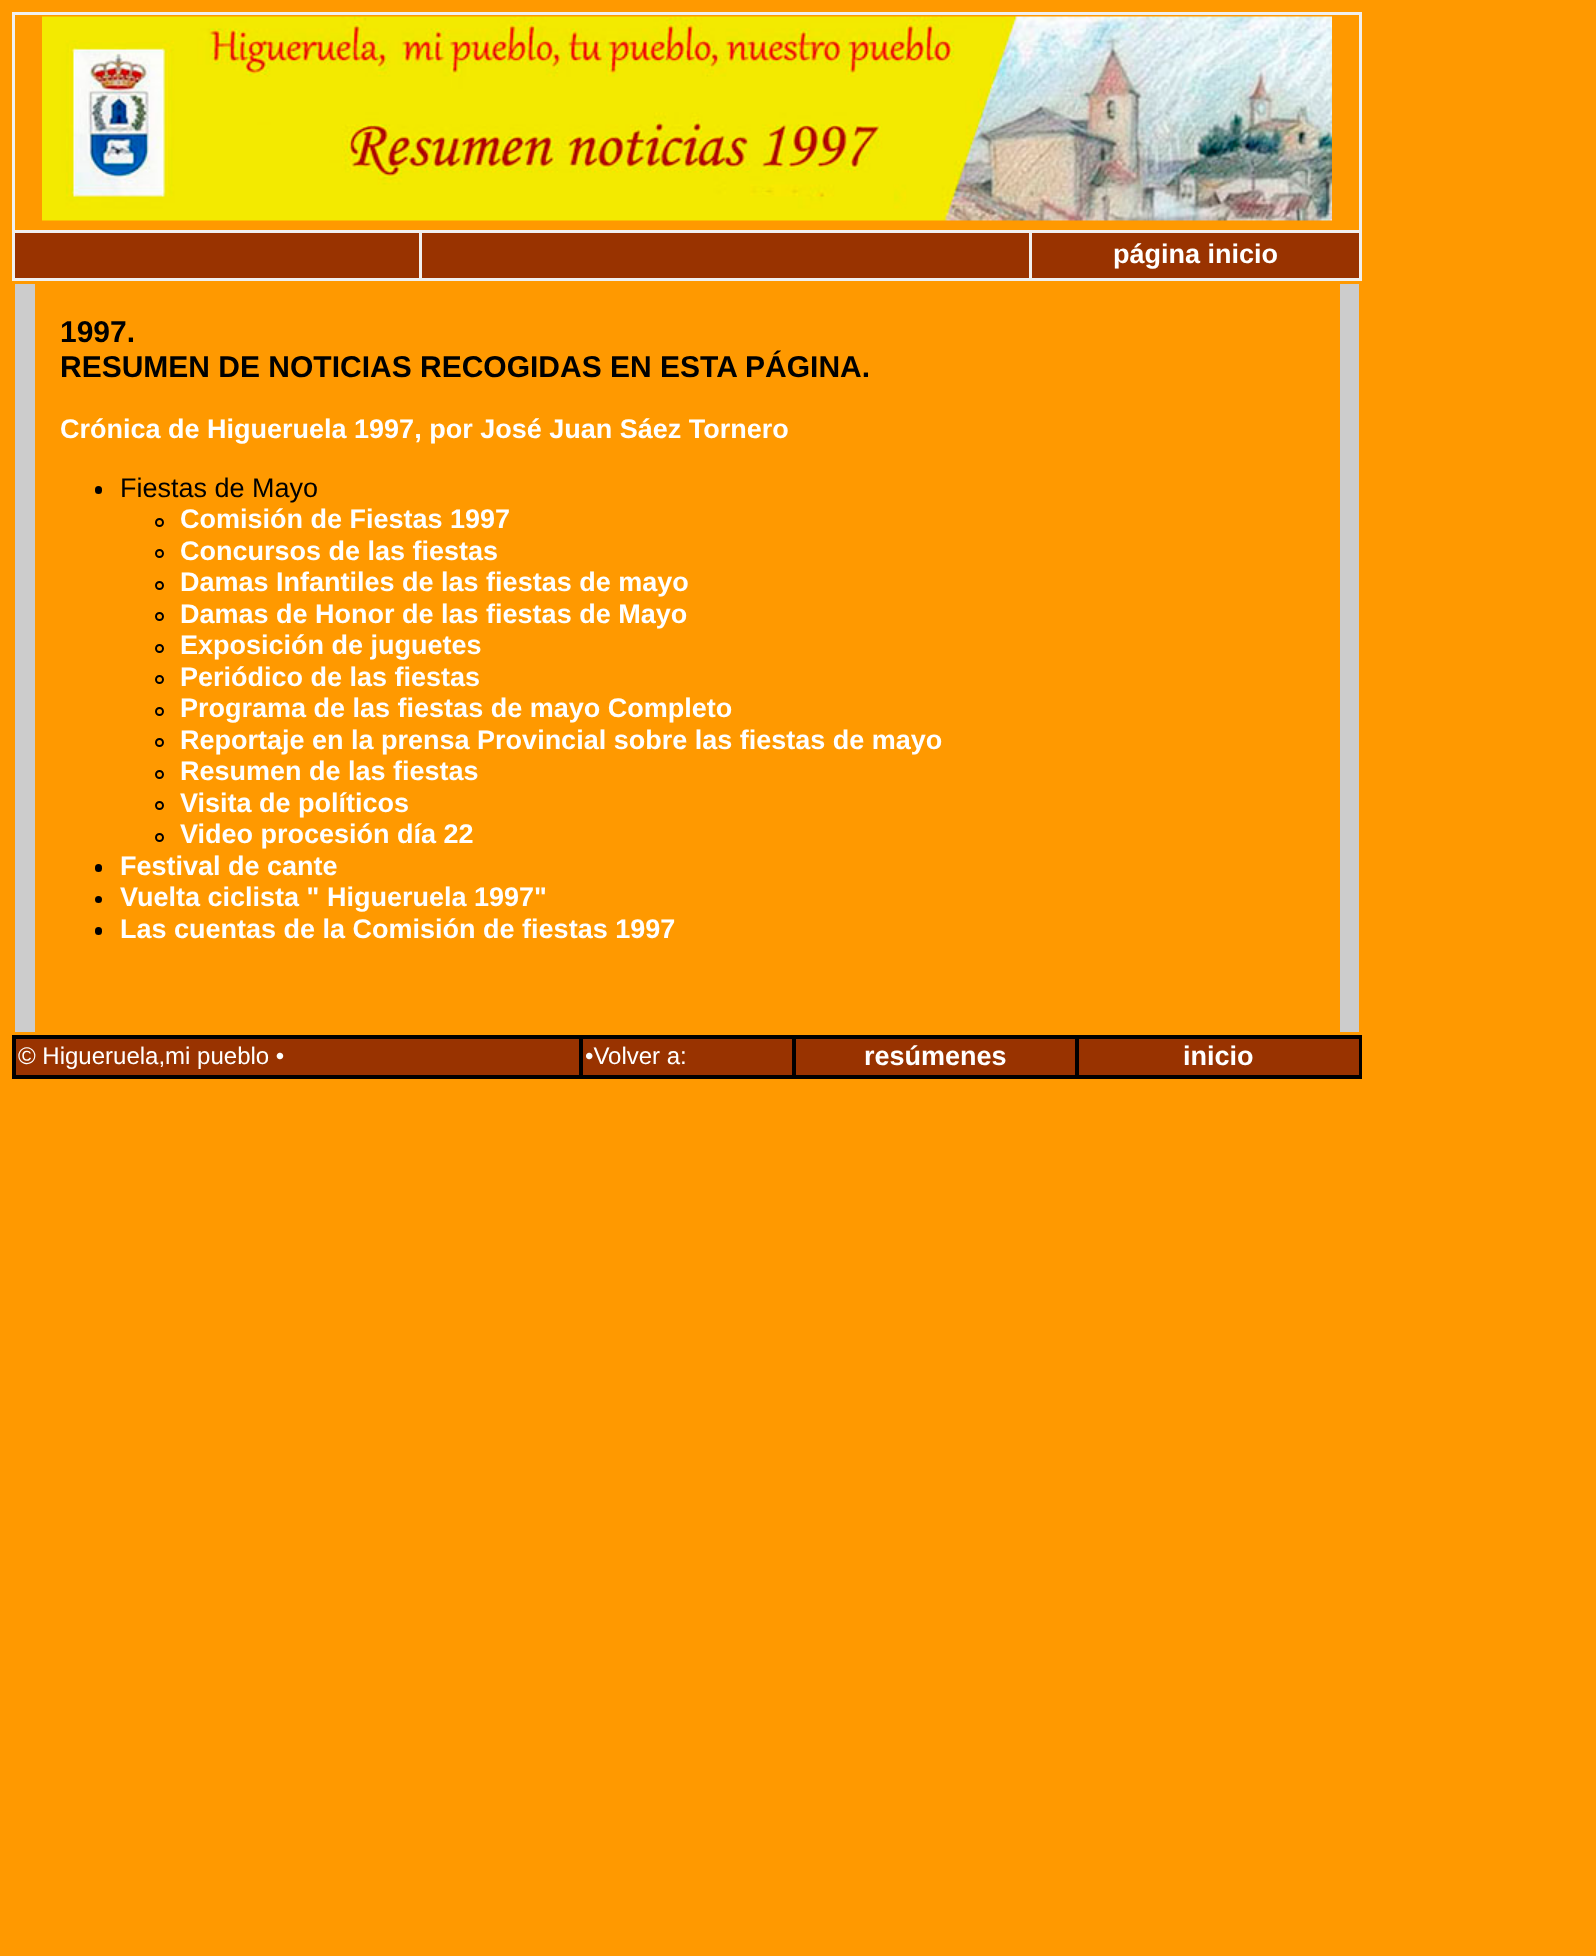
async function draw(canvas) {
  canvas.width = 1596;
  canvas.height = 1956;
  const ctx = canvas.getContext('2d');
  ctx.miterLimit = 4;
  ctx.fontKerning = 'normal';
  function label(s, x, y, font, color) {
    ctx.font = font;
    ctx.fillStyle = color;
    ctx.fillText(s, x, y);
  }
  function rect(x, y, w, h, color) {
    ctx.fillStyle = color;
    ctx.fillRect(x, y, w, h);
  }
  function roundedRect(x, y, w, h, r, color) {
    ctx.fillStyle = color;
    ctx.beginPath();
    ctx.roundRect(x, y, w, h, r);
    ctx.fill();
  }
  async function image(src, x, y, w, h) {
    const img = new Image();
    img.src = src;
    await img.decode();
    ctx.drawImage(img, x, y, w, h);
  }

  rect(0, 0, 1596, 1956, '#f90');
  rect(12, 12, 1350, 269, '#f0f0f0');
  rect(15, 15, 1344, 215, '#f90');
  await image('assets/img1.png', 42, 16, 1290, 205);
  rect(15, 233, 404, 45, '#930');
  rect(422, 233, 607, 45, '#930');
  rect(1032, 233, 327, 45, '#930');
  label('página inicio', 1113, 263, 'bold 27px Liberation Sans', '#fff');
  rect(15, 284, 20, 748, '#ccc');
  label('1997.', 60, 342, 'bold 30px Liberation Sans', '#000');
  label('RESUMEN DE NOTICIAS RECOGIDAS EN ESTA PÁGINA.', 60, 377, 'bold 30px Liberation Sans', '#000');
  label('Crónica de Higueruela 1997, por José Juan Sáez Tornero', 60, 438, 'bold 27px Liberation Sans', '#fff');
  roundedRect(95, 486, 7, 8, 3.5, '#000');
  label('Fiestas de Mayo', 120, 497, '27px Liberation Sans', '#000');
  ctx.beginPath();
  ctx.arc(159.5, 522.5, 3.5, 0, 2 * Math.PI);
  ctx.strokeStyle = '#000';
  ctx.lineWidth = 2;
  ctx.stroke();
  label('Comisión de Fiestas 1997', 180, 528, 'bold 27px Liberation Sans', '#fff');
  ctx.beginPath();
  ctx.arc(159.5, 553.5, 3.5, 0, 2 * Math.PI);
  ctx.stroke();
  label('Concursos de las fiestas', 180, 560, 'bold 27px Liberation Sans', '#fff');
  ctx.beginPath();
  ctx.arc(159.5, 585.5, 3.5, 0, 2 * Math.PI);
  ctx.stroke();
  label('Damas Infantiles de las fiestas de mayo', 180, 591, 'bold 27px Liberation Sans', '#fff');
  ctx.beginPath();
  ctx.arc(159.5, 616.5, 3.5, 0, 2 * Math.PI);
  ctx.stroke();
  label('Damas de Honor de las fiestas de Mayo', 180, 623, 'bold 27px Liberation Sans', '#fff');
  ctx.beginPath();
  ctx.arc(159.5, 648.5, 3.5, 0, 2 * Math.PI);
  ctx.stroke();
  label('Exposición de juguetes', 180, 654, 'bold 27px Liberation Sans', '#fff');
  ctx.beginPath();
  ctx.arc(159.5, 679.5, 3.5, 0, 2 * Math.PI);
  ctx.stroke();
  label('Periódico de las fiestas', 180, 686, 'bold 27px Liberation Sans', '#fff');
  ctx.beginPath();
  ctx.arc(159.5, 711.5, 3.5, 0, 2 * Math.PI);
  ctx.stroke();
  label('Programa de las fiestas de mayo Completo', 180, 717, 'bold 27px Liberation Sans', '#fff');
  ctx.beginPath();
  ctx.arc(159.5, 742.5, 3.5, 0, 2 * Math.PI);
  ctx.stroke();
  label('Reportaje en la prensa Provincial sobre las fiestas de mayo', 180, 749, 'bold 27px Liberation Sans', '#fff');
  ctx.beginPath();
  ctx.arc(159.5, 774.5, 3.5, 0, 2 * Math.PI);
  ctx.stroke();
  label('Resumen de las fiestas', 180, 780, 'bold 27px Liberation Sans', '#fff');
  ctx.beginPath();
  ctx.arc(159.5, 805.5, 3.5, 0, 2 * Math.PI);
  ctx.stroke();
  label('Visita de políticos', 180, 812, 'bold 27px Liberation Sans', '#fff');
  ctx.beginPath();
  ctx.arc(159.5, 837.5, 3.5, 0, 2 * Math.PI);
  ctx.stroke();
  label('Video procesión día 22', 180, 843, 'bold 27px Liberation Sans', '#fff');
  roundedRect(95, 864, 7, 8, 3.5, '#000');
  label('Festival de cante', 120, 875, 'bold 27px Liberation Sans', '#fff');
  ctx.fillStyle = '#000';
  ctx.beginPath();
  ctx.arc(98.5, 899.5, 3.5, 0, 2 * Math.PI);
  ctx.fill();
  label('Vuelta ciclista " Higueruela 1997"', 120, 906, 'bold 27px Liberation Sans', '#fff');
  roundedRect(95, 927, 7, 8, 3.5, '#000');
  label('Las cuentas de la Comisión de fiestas 1997', 120, 938, 'bold 27px Liberation Sans', '#fff');
  rect(1340, 284, 19, 748, '#ccc');
  ctx.strokeRect(13, 1036, 1348, 42);
  ctx.fillStyle = '#930';
  ctx.beginPath();
  ctx.rect(15, 1038, 565, 38);
  ctx.fill();
  ctx.stroke();
  label('© Higueruela,mi pueblo •', 18, 1064, '24px Liberation Sans', '#fff');
  ctx.fillStyle = '#930';
  ctx.beginPath();
  ctx.rect(582, 1038, 211, 38);
  ctx.fill();
  ctx.stroke();
  label('•Volver a:', 585, 1064, '24px Liberation Sans', '#fff');
  ctx.fillStyle = '#930';
  ctx.beginPath();
  ctx.rect(795, 1038, 281, 38);
  ctx.fill();
  ctx.stroke();
  label('resúmenes', 864, 1065, 'bold 27px Liberation Sans', '#fff');
  ctx.fillStyle = '#930';
  ctx.beginPath();
  ctx.rect(1078, 1038, 282, 38);
  ctx.fill();
  ctx.stroke();
  label('inicio', 1183, 1065, 'bold 27px Liberation Sans', '#fff');
}

draw(document.querySelector('canvas'));
